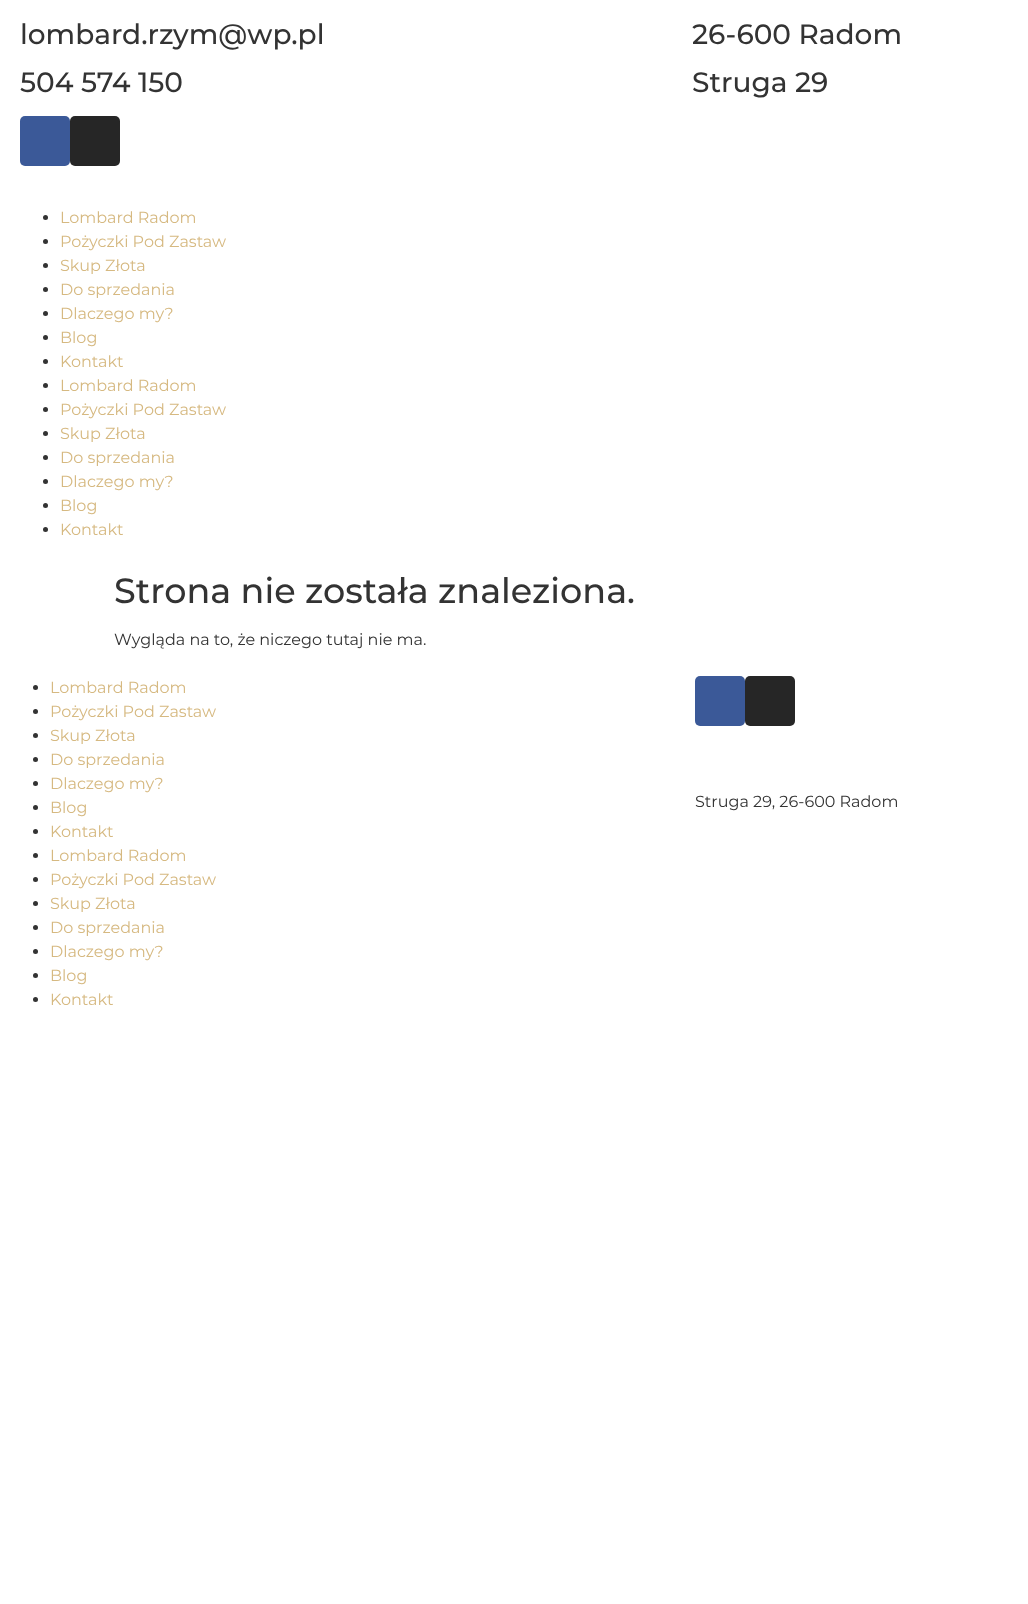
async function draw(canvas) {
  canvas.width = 1028;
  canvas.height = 1604;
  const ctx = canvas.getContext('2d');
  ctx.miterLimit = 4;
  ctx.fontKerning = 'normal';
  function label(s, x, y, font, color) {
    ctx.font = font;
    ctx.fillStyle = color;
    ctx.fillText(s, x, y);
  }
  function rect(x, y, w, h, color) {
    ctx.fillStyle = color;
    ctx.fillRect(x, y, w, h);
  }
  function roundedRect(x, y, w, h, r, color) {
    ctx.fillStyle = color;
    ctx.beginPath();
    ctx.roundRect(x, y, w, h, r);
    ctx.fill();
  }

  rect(0, 0, 1028, 1604, '#fff');
  label('lombard.rzym@wp.pl', 20, 44, '500 28px Montserrat', '#333');
  label('504 574 150', 20, 92, '500 28px Montserrat', '#333');
  roundedRect(20, 116, 50, 50, 5, '#3b5998');
  roundedRect(70, 116, 50, 50, 5, '#262626');
  label('26-600 Radom', 692, 44, '500 28px Montserrat', '#333');
  label('Struga 29', 692, 92, '500 28px Montserrat', '#333');
  ctx.beginPath();
  ctx.arc(45.5, 217.5, 2.5, 0, 2 * Math.PI);
  ctx.fill();
  label('Lombard Radom', 60, 223, '16px Montserrat', '#d6b981');
  ctx.fillStyle = '#333';
  ctx.beginPath();
  ctx.arc(45.5, 241.5, 2.5, 0, 2 * Math.PI);
  ctx.fill();
  label('Pożyczki Pod Zastaw', 60, 247, '16px Montserrat', '#d6b981');
  ctx.fillStyle = '#333';
  ctx.beginPath();
  ctx.arc(45.5, 265.5, 2.5, 0, 2 * Math.PI);
  ctx.fill();
  label('Skup Złota', 60, 271, '16px Montserrat', '#d6b981');
  ctx.fillStyle = '#333';
  ctx.beginPath();
  ctx.arc(45.5, 289.5, 2.5, 0, 2 * Math.PI);
  ctx.fill();
  label('Do sprzedania', 60, 295, '16px Montserrat', '#d6b981');
  ctx.fillStyle = '#333';
  ctx.beginPath();
  ctx.arc(45.5, 313.5, 2.5, 0, 2 * Math.PI);
  ctx.fill();
  label('Dlaczego my?', 60, 319, '16px Montserrat', '#d6b981');
  ctx.fillStyle = '#333';
  ctx.beginPath();
  ctx.arc(45.5, 337.5, 2.5, 0, 2 * Math.PI);
  ctx.fill();
  label('Blog', 60, 343, '16px Montserrat', '#d6b981');
  ctx.fillStyle = '#333';
  ctx.beginPath();
  ctx.arc(45.5, 361.5, 2.5, 0, 2 * Math.PI);
  ctx.fill();
  label('Kontakt', 60, 367, '16px Montserrat', '#d6b981');
  ctx.fillStyle = '#333';
  ctx.beginPath();
  ctx.arc(45.5, 385.5, 2.5, 0, 2 * Math.PI);
  ctx.fill();
  label('Lombard Radom', 60, 391, '16px Montserrat', '#d6b981');
  ctx.fillStyle = '#333';
  ctx.beginPath();
  ctx.arc(45.5, 409.5, 2.5, 0, 2 * Math.PI);
  ctx.fill();
  label('Pożyczki Pod Zastaw', 60, 415, '16px Montserrat', '#d6b981');
  ctx.fillStyle = '#333';
  ctx.beginPath();
  ctx.arc(45.5, 433.5, 2.5, 0, 2 * Math.PI);
  ctx.fill();
  label('Skup Złota', 60, 439, '16px Montserrat', '#d6b981');
  ctx.fillStyle = '#333';
  ctx.beginPath();
  ctx.arc(45.5, 457.5, 2.5, 0, 2 * Math.PI);
  ctx.fill();
  label('Do sprzedania', 60, 463, '16px Montserrat', '#d6b981');
  ctx.fillStyle = '#333';
  ctx.beginPath();
  ctx.arc(45.5, 481.5, 2.5, 0, 2 * Math.PI);
  ctx.fill();
  label('Dlaczego my?', 60, 487, '16px Montserrat', '#d6b981');
  ctx.fillStyle = '#333';
  ctx.beginPath();
  ctx.arc(45.5, 505.5, 2.5, 0, 2 * Math.PI);
  ctx.fill();
  label('Blog', 60, 511, '16px Montserrat', '#d6b981');
  ctx.fillStyle = '#333';
  ctx.beginPath();
  ctx.arc(45.5, 529.5, 2.5, 0, 2 * Math.PI);
  ctx.fill();
  label('Kontakt', 60, 535, '16px Montserrat', '#d6b981');
  label('Strona nie została znaleziona.', 114, 603, '500 35px Montserrat', '#333');
  label('Wygląda na to, że niczego tutaj nie ma.', 114, 645, '16px Montserrat', '#333');
  ctx.beginPath();
  ctx.arc(35.5, 687.5, 2.5, 0, 2 * Math.PI);
  ctx.fill();
  label('Lombard Radom', 50, 693, '16px Montserrat', '#d6b981');
  ctx.fillStyle = '#333';
  ctx.beginPath();
  ctx.arc(35.5, 711.5, 2.5, 0, 2 * Math.PI);
  ctx.fill();
  label('Pożyczki Pod Zastaw', 50, 717, '16px Montserrat', '#d6b981');
  ctx.fillStyle = '#333';
  ctx.beginPath();
  ctx.arc(35.5, 735.5, 2.5, 0, 2 * Math.PI);
  ctx.fill();
  label('Skup Złota', 50, 741, '16px Montserrat', '#d6b981');
  ctx.fillStyle = '#333';
  ctx.beginPath();
  ctx.arc(35.5, 759.5, 2.5, 0, 2 * Math.PI);
  ctx.fill();
  label('Do sprzedania', 50, 765, '16px Montserrat', '#d6b981');
  ctx.fillStyle = '#333';
  ctx.beginPath();
  ctx.arc(35.5, 783.5, 2.5, 0, 2 * Math.PI);
  ctx.fill();
  label('Dlaczego my?', 50, 789, '16px Montserrat', '#d6b981');
  ctx.fillStyle = '#333';
  ctx.beginPath();
  ctx.arc(35.5, 807.5, 2.5, 0, 2 * Math.PI);
  ctx.fill();
  label('Blog', 50, 813, '16px Montserrat', '#d6b981');
  ctx.fillStyle = '#333';
  ctx.beginPath();
  ctx.arc(35.5, 831.5, 2.5, 0, 2 * Math.PI);
  ctx.fill();
  label('Kontakt', 50, 837, '16px Montserrat', '#d6b981');
  ctx.fillStyle = '#333';
  ctx.beginPath();
  ctx.arc(35.5, 855.5, 2.5, 0, 2 * Math.PI);
  ctx.fill();
  label('Lombard Radom', 50, 861, '16px Montserrat', '#d6b981');
  ctx.fillStyle = '#333';
  ctx.beginPath();
  ctx.arc(35.5, 879.5, 2.5, 0, 2 * Math.PI);
  ctx.fill();
  label('Pożyczki Pod Zastaw', 50, 885, '16px Montserrat', '#d6b981');
  ctx.fillStyle = '#333';
  ctx.beginPath();
  ctx.arc(35.5, 903.5, 2.5, 0, 2 * Math.PI);
  ctx.fill();
  label('Skup Złota', 50, 909, '16px Montserrat', '#d6b981');
  ctx.fillStyle = '#333';
  ctx.beginPath();
  ctx.arc(35.5, 927.5, 2.5, 0, 2 * Math.PI);
  ctx.fill();
  label('Do sprzedania', 50, 933, '16px Montserrat', '#d6b981');
  ctx.fillStyle = '#333';
  ctx.beginPath();
  ctx.arc(35.5, 951.5, 2.5, 0, 2 * Math.PI);
  ctx.fill();
  label('Dlaczego my?', 50, 957, '16px Montserrat', '#d6b981');
  ctx.fillStyle = '#333';
  ctx.beginPath();
  ctx.arc(35.5, 975.5, 2.5, 0, 2 * Math.PI);
  ctx.fill();
  label('Blog', 50, 981, '16px Montserrat', '#d6b981');
  ctx.fillStyle = '#333';
  ctx.beginPath();
  ctx.arc(35.5, 999.5, 2.5, 0, 2 * Math.PI);
  ctx.fill();
  label('Kontakt', 50, 1005, '16px Montserrat', '#d6b981');
  roundedRect(695, 676, 50, 50, 5, '#3b5998');
  roundedRect(745, 676, 50, 50, 5, '#262626');
  label('Struga 29, 26-600 Radom', 695, 807, '16px Montserrat', '#333');
}

draw(document.querySelector('canvas'));
